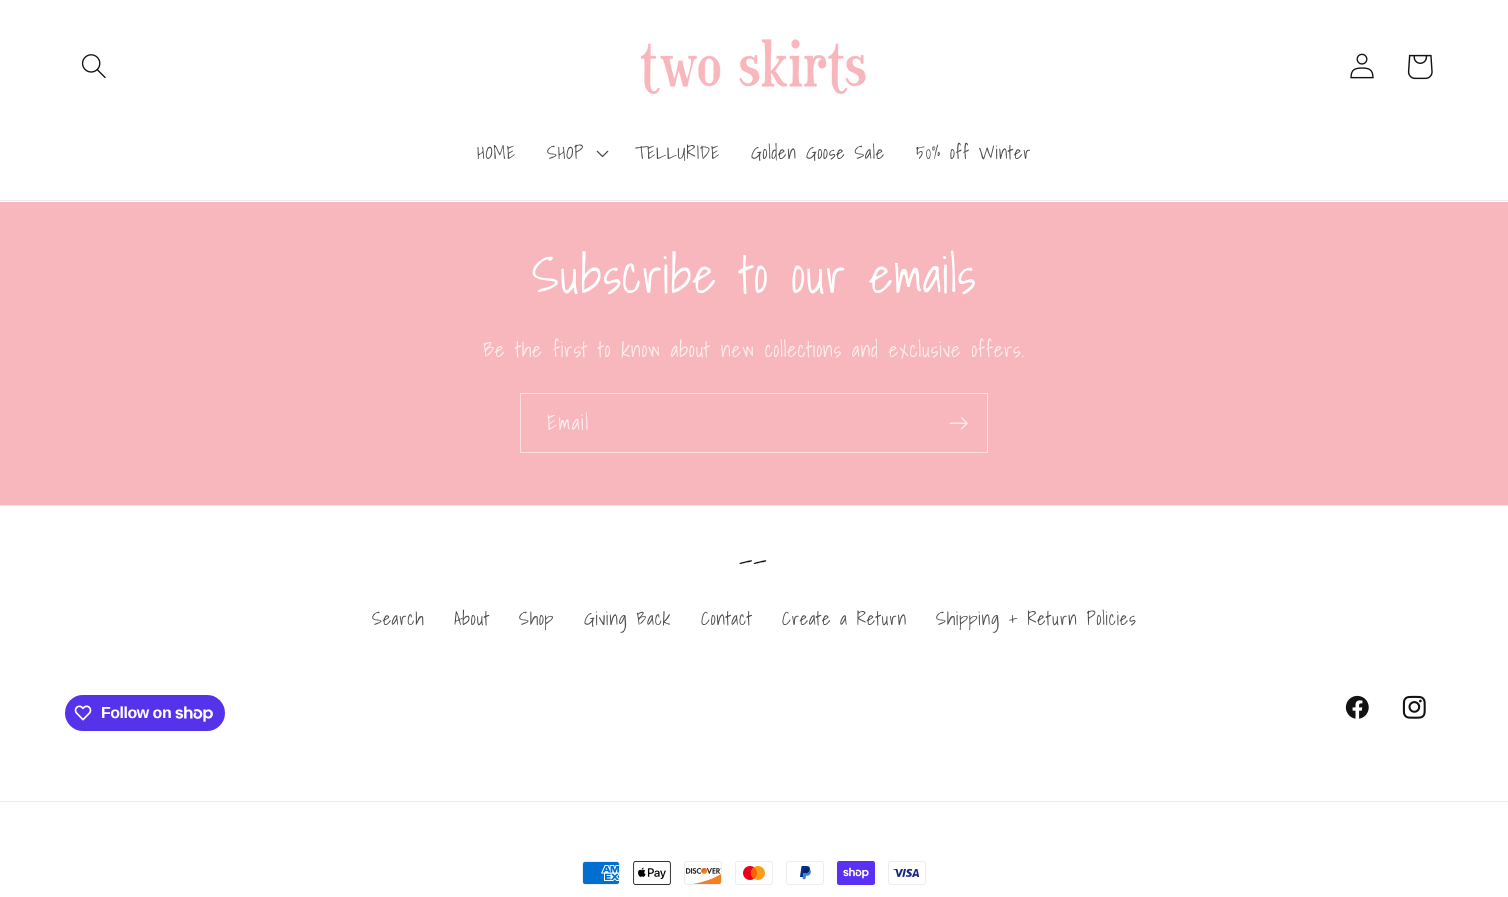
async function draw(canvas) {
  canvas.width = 1508;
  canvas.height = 897;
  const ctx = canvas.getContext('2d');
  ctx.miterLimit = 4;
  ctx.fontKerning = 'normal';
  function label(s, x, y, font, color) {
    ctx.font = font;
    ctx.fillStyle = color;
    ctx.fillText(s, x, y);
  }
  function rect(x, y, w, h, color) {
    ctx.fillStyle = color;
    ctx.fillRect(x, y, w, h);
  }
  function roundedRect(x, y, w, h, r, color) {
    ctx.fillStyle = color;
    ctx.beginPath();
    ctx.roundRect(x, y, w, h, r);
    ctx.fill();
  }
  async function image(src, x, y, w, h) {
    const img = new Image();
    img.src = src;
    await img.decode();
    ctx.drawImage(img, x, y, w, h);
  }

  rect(0, 0, 1508, 897, '#fff');
  rect(0, 200, 1508, 1, '#ececec');
  await image('assets/img1.png', 81, 54, 25, 25);
  await image('assets/img2.png', 640, 39, 226, 56);
  await image('assets/img3.png', 1350, 53, 24, 26);
  await image('assets/img4.png', 1407, 54, 26, 26);
  ctx.letterSpacing = '0.78px';
  label('HOME', 477, 159, '18.25px Shadows Into Light', '#4d4d4d');
  label('SHOP', 547, 159, '18.25px Shadows Into Light', '#4d4d4d');
  await image('assets/img5.png', 596, 150, 13, 8);
  label('TELLURIDE', 635, 159, '18.25px Shadows Into Light', '#4d4d4d');
  label('Golden Goose Sale', 751, 159, '18.25px Shadows Into Light', '#4d4d4d');
  label('50% off Winter', 916, 159, '18.25px Shadows Into Light', '#4d4d4d');
  rect(0, 202, 1508, 303, '#f8b7bd');
  ctx.letterSpacing = '0.75px';
  label('Subscribe to our emails', 532, 293, '50px Shadows Into Light', '#fff');
  ctx.letterSpacing = '0.78px';
  label('Be the first to know about new collections and exclusive offers.', 483, 357, '20.8px Shadows Into Light', '#fdedef');
  ctx.strokeStyle = '#fcdfe1';
  ctx.strokeRect(520.5, 393.5, 467, 59);
  ctx.letterSpacing = '1.5px';
  label('Email', 547, 430, '20.8px Shadows Into Light', '#fdedef');
  await image('assets/img6.png', 949, 417, 19, 13);
  rect(0, 505, 1508, 1, '#ececec');
  ctx.letterSpacing = '0.75px';
  label('__', 739, 564, '22px Shadows Into Light', '#121212');
  ctx.letterSpacing = '0.78px';
  label('Search', 372, 625, '18.25px Shadows Into Light', '#4d4d4d');
  label('About', 454, 625, '18.25px Shadows Into Light', '#4d4d4d');
  label('Shop', 519, 625, '18.25px Shadows Into Light', '#4d4d4d');
  label('Giving Back', 584, 625, '18.25px Shadows Into Light', '#4d4d4d');
  label('Contact', 701, 625, '18.25px Shadows Into Light', '#4d4d4d');
  label('Create a Return', 782, 625, '18.25px Shadows Into Light', '#4d4d4d');
  label('Shipping + Return Policies', 936, 625, '18.25px Shadows Into Light', '#4d4d4d');
  roundedRect(65, 695, 160, 36, 18, '#5433eb');
  await image('assets/img7.png', 74, 705, 18, 16);
  ctx.letterSpacing = '-0.5px';
  label('Follow on', 101, 718, 'bold 16px Liberation Sans', '#fff');
  await image('assets/img8.png', 175, 706, 38, 16);
  await image('assets/img9.png', 1345, 695, 24, 24);
  await image('assets/img10.png', 1402, 695, 24, 24);
  rect(0, 801, 1508, 1, '#ececec');
  await image('assets/img11.png', 582, 861, 38, 24);
  await image('assets/img12.png', 633, 861, 38, 24);
  await image('assets/img13.png', 684, 861, 38, 24);
  await image('assets/img14.png', 735, 861, 38, 24);
  await image('assets/img15.png', 786, 861, 38, 24);
  await image('assets/img16.png', 837, 861, 38, 24);
  await image('assets/img17.png', 888, 861, 38, 24);
}

draw(document.querySelector('canvas'));
